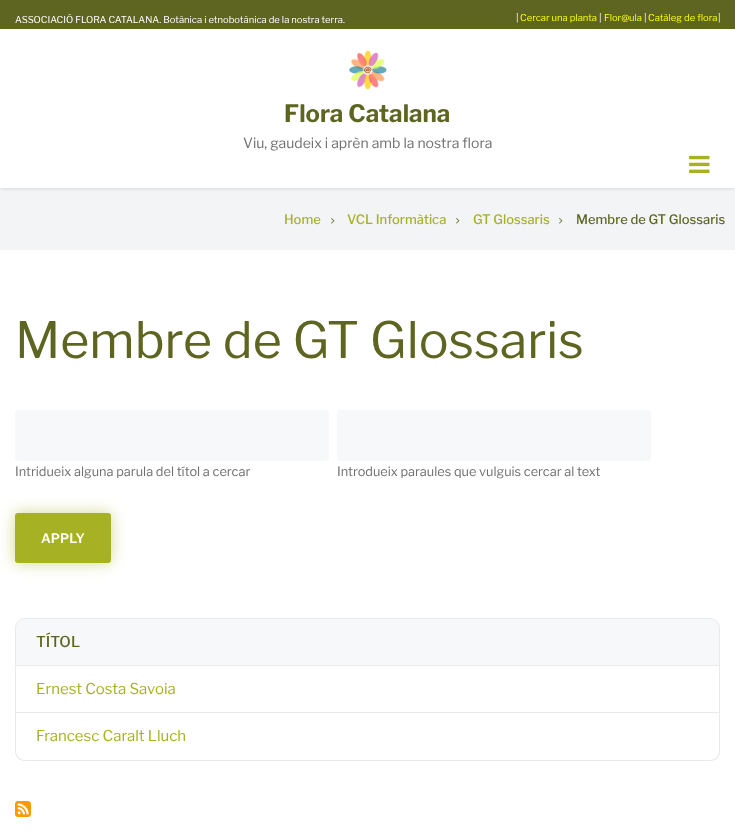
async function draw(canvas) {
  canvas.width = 735;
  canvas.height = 837;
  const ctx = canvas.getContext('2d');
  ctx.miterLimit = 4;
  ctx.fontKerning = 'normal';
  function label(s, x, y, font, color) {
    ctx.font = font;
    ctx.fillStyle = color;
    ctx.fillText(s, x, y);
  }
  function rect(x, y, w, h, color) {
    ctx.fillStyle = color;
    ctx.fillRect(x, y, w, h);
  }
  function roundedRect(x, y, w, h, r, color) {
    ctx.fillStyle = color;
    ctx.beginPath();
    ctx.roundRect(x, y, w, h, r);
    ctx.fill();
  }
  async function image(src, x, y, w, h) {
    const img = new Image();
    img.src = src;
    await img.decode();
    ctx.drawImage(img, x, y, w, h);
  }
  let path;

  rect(0, 0, 735, 837, '#fff');
  rect(0, 188, 735, 62, '#f2f4f6');
  ctx.save();
  ctx.beginPath();
  ctx.rect(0, 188, 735, 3);
  ctx.clip();
  ctx.fillStyle = '#0000001a';
  ctx.filter = 'blur(2.5px)';
  ctx.beginPath();
  ctx.rect(0, 1, 735, 188);
  ctx.fill();
  ctx.filter = 'none';
  ctx.restore();
  rect(0, 0, 735, 29, '#5e6521');
  label('ASSOCIACIÓ FLORA CATALANA. Botànica i etnobotànica de la nostra terra.', 15, 23, '9.45px Libre Franklin', '#fff');
  label('|', 516, 21, '9.45px Libre Franklin', '#fff');
  label('Cercar una planta', 520, 21, '9.45px Libre Franklin', '#ff0');
  label('|', 599, 21, '9.45px Libre Franklin', '#fff');
  label('Flor@ula', 604, 21, '9.45px Libre Franklin', '#ff0');
  label('|', 644, 21, '9.45px Libre Franklin', '#fff');
  label('Catàleg de flora', 648, 21, '9.45px Libre Franklin', '#ff0');
  label('|', 718, 21, '9.45px Libre Franklin', '#fff');
  await image('assets/img1.png', 349, 50, 38, 40);
  label('Flora Catalana', 284, 122, 'bold 24px Libre Franklin', '#5e6521');
  label('Viu, gaudeix i aprèn amb la nostra flora', 243, 148, '14px Libre Franklin', '#707070');
  await image('assets/img2.png', 689, 155, 21, 18);
  label('Home', 284, 224, '500 13px Libre Franklin', '#a6b224');
  await image('assets/img3.png', 331, 218, 4, 6);
  label('VCL Informàtica', 347, 224, '500 13px Libre Franklin', '#a6b224');
  await image('assets/img3.png', 456, 218, 4, 6);
  label('GT Glossaris', 473, 224, '500 13px Libre Franklin', '#a6b224');
  await image('assets/img3.png', 559, 218, 4, 6);
  label('Membre de GT Glossaris', 576, 224, '500 13px Libre Franklin', '#5e6521');
  label('Membre de GT Glossaris', 15, 358, '50px Libre Franklin', '#5e6521');
  roundedRect(15, 410, 314, 51, 3, '#f6f8f9');
  label('Intridueix alguna parula del títol a cercar', 15, 476, '12.75px Libre Franklin', '#707070');
  roundedRect(337, 410, 314, 51, 3, '#f6f8f9');
  label('Introdueix paraules que vulguis cercar al text', 337, 476, '12.75px Libre Franklin', '#707070');
  ctx.fillStyle = '#a6b22480';
  ctx.filter = 'blur(7.5px)';
  ctx.beginPath();
  ctx.roundRect(15, 513, 96, 50, 3);
  ctx.fill();
  ctx.filter = 'none';
  roundedRect(15, 513, 96, 50, 3, '#a6b224');
  label('APPLY', 41, 543, '600 13px Libre Franklin', '#fff');
  ctx.fillStyle = '#f6f8f9';
  ctx.beginPath();
  ctx.roundRect(15.5, 618.5, 704, 47, [9.5, 9.5, 0, 0]);
  ctx.fill();
  ctx.strokeStyle = '#eaeaea';
  ctx.stroke();
  label('TÍTOL', 36, 647, '500 15px Libre Franklin', '#5e6521');
  rect(719, 666, 1, 47, '#eaeaea');
  rect(15, 712, 705, 1, '#eaeaea');
  rect(15, 666, 1, 47, '#eaeaea');
  label('Ernest Costa Savoia', 36, 694, '15px Libre Franklin', '#a6b224');
  ctx.fillStyle = '#eaeaea';
  path = new Path2D('M15 713H720V751C720 757 716 761 710 761H25C19 761 15 757 15 751ZM16 713H719V751C719 756 715 760 710 760H25C20 760 16 756 16 751Z');
  ctx.fill(path, 'evenodd');
  label('Francesc Caralt Lluch', 36, 741, '15px Libre Franklin', '#a6b224');
  await image('assets/img4.png', 15, 801, 16, 16);
}

draw(document.querySelector('canvas'));
